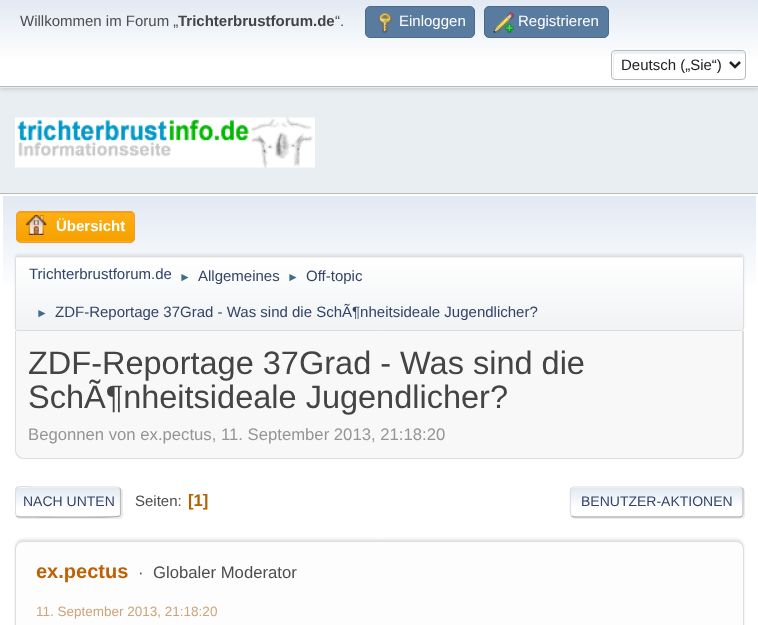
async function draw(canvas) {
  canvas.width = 758;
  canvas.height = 625;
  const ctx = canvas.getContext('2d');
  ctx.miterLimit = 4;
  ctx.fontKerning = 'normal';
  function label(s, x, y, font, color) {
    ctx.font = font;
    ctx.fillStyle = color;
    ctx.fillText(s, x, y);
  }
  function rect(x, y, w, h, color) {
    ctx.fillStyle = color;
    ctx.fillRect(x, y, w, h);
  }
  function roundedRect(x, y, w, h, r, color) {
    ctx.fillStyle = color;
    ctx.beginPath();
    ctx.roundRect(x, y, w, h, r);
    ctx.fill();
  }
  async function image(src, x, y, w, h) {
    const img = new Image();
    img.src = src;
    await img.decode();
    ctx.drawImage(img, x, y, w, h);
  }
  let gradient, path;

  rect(0, 0, 758, 625, '#e9eef2');
  ctx.fillStyle = '#00000029';
  ctx.filter = 'blur(2.5px)';
  ctx.beginPath();
  ctx.rect(0, 1, 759, 88);
  ctx.fill();
  ctx.filter = 'none';
  gradient = ctx.createLinearGradient(379, 0, 379, 86);
  gradient.addColorStop(0, '#e2e9f3');
  gradient.addColorStop(0.7, '#fff');
  ctx.fillStyle = gradient;
  ctx.fillRect(0, 0, 758, 86);
  gradient = ctx.createLinearGradient(379, 86, 379, 173);
  gradient.addColorStop(0, '#e2e9f3');
  gradient.addColorStop(0.7, '#fff');
  ctx.fillStyle = gradient;
  ctx.fillRect(0, 87, 758, 1);
  rect(0, 86, 758, 1, '#bbb');
  label('Willkommen im Forum „', 20, 26, '15px Liberation Sans', '#4d4d4d');
  label('Trichterbrustforum.de', 178, 26, 'bold 15px Liberation Sans', '#444');
  label('“.', 335, 26, '15px Liberation Sans', '#4d4d4d');
  ctx.fillStyle = '#597b9f';
  ctx.beginPath();
  ctx.roundRect(365.5, 6.5, 109, 31, 4.5);
  ctx.fill();
  ctx.strokeStyle = '#4a6b8c';
  ctx.stroke();
  await image('assets/img1.png', 378, 12, 14, 21);
  label('Einloggen', 399, 26, '15px Liberation Sans', '#fff');
  ctx.fillStyle = '#597b9f';
  ctx.beginPath();
  ctx.roundRect(484.5, 6.5, 124, 31, 4.5);
  ctx.fill();
  ctx.stroke();
  await image('assets/img2.png', 493, 12, 21, 21);
  label('Registrieren', 518, 26, '15px Liberation Sans', '#fff');
  roundedRect(611, 50, 135, 30, 4, '#fff');
  ctx.fillStyle = '#ecf1f8';
  path = new Path2D('M616 54H745C745 52 744 51 742 51H616C614 51 613 52 613 54V76C613 77 613 78 614 79V56C614 55 615 54 616 54Z');
  ctx.fill(path);
  ctx.beginPath();
  ctx.roundRect(611.5, 50.5, 134, 29, 3.5);
  ctx.strokeStyle = '#bbb';
  ctx.stroke();
  path = new Path2D('M730 62L735 67L740 62');
  ctx.strokeStyle = '#222';
  ctx.lineWidth = 2.5;
  ctx.stroke(path);
  label('Deutsch („Sie“)', 621, 70, '15px Liberation Sans', '#222');
  await image('assets/img3.png', 15, 117, 300, 51);
  rect(0, 194, 758, 431, '#fff');
  rect(0, 193, 758, 1, '#b8b8b8');
  gradient = ctx.createLinearGradient(379, 196, 379, 334);
  gradient.addColorStop(0, '#e2e9f3');
  gradient.addColorStop(0.7, '#fff');
  ctx.fillStyle = gradient;
  ctx.fillRect(3, 196, 753, 88);
  ctx.save();
  ctx.beginPath();
  ctx.roundRect(16, 211, 119, 32, 5);
  ctx.clip();
  gradient = ctx.createLinearGradient(76, 184, 76, 213);
  gradient.addColorStop(0, '#ffae14');
  gradient.addColorStop(1, '#f5a100');
  ctx.fillStyle = gradient;
  ctx.fillRect(16, 211, 119, 2);
  gradient = ctx.createLinearGradient(76, 213, 76, 241);
  gradient.addColorStop(0, '#ffae14');
  gradient.addColorStop(1, '#f5a100');
  ctx.fillStyle = gradient;
  ctx.fillRect(16, 213, 119, 28);
  gradient = ctx.createLinearGradient(76, 241, 76, 270);
  gradient.addColorStop(0, '#ffae14');
  gradient.addColorStop(1, '#f5a100');
  ctx.fillStyle = gradient;
  ctx.fillRect(16, 241, 119, 2);
  ctx.restore();
  ctx.beginPath();
  ctx.roundRect(16.5, 211.5, 118, 31, 4.5);
  ctx.strokeStyle = '#f49a3a';
  ctx.lineWidth = 1;
  ctx.stroke();
  await image('assets/img4.png', 26, 215, 21, 20);
  label('Übersicht', 56, 231, 'bold 15px Liberation Sans', '#fff');
  ctx.fillStyle = '#00000014';
  ctx.filter = 'blur(1px)';
  ctx.beginPath();
  ctx.roundRect(15, 254, 729, 75, 2.5);
  ctx.fill();
  ctx.filter = 'none';
  ctx.save();
  ctx.beginPath();
  ctx.roundRect(15, 256, 729, 75, 2.5);
  ctx.clip();
  gradient = ctx.createLinearGradient(379, 185, 379, 258);
  gradient.addColorStop(0, '#fff');
  gradient.addColorStop(0.95, '#f1f3f5');
  ctx.fillStyle = gradient;
  ctx.fillRect(15, 256, 729, 2);
  ctx.restore();
  gradient = ctx.createLinearGradient(379, 257, 379, 330);
  gradient.addColorStop(0, '#fff');
  gradient.addColorStop(0.95, '#f1f3f5');
  ctx.fillStyle = gradient;
  ctx.fillRect(15, 258, 729, 72);
  ctx.beginPath();
  ctx.roundRect(15.5, 256.5, 728, 74, 2);
  ctx.strokeStyle = '#ddd';
  ctx.stroke();
  label('Trichterbrustforum.de', 29, 279, '15px Liberation Sans', '#346');
  label('►', 179, 281, '12px Liberation Sans', '#3f6b8c');
  label('Allgemeines', 198, 281, '15px Liberation Sans', '#346');
  label('►', 287, 281, '12px Liberation Sans', '#3f6b8c');
  label('Off-topic', 306, 281, '15px Liberation Sans', '#346');
  label('►', 36, 317, '12px Liberation Sans', '#3f6b8c');
  label('ZDF-Reportage 37Grad - Was sind die SchÃ¶nheitsideale Jugendlicher?', 55, 317, '15px Liberation Sans', '#346');
  ctx.fillStyle = '#f8f8f8';
  ctx.beginPath();
  ctx.roundRect(15, 331, 729, 128, [0, 0, 9, 9]);
  ctx.fill();
  ctx.fillStyle = '#ddd';
  path = new Path2D('M15 331H744V450C744 455 740 459 735 459H24C19 459 15 455 15 450ZM16 331H742V450C742 454 739 458 735 458H24C20 458 16 454 16 450Z');
  ctx.fill(path, 'evenodd');
  label('ZDF-Reportage 37Grad - Was sind die', 28, 374, '32.5px Liberation Sans', '#444');
  label('SchÃ¶nheitsideale Jugendlicher?', 28, 408, '32.5px Liberation Sans', '#444');
  label('Begonnen von ex.pectus, 11. September 2013, 21:18:20', 28, 440, '16.7px Liberation Sans', '#959595');
  ctx.fillStyle = '#dddddd91';
  ctx.filter = 'blur(0.5px)';
  ctx.beginPath();
  ctx.roundRect(16, 488, 107, 31, 4);
  ctx.fill();
  ctx.filter = 'none';
  roundedRect(15, 486, 106, 32, 4, '#fff');
  ctx.save();
  ctx.beginPath();
  ctx.roundRect(15, 486, 106, 32, 4);
  ctx.clip();
  gradient = ctx.createLinearGradient(68, 488, 68, 516);
  gradient.addColorStop(0, '#e2e9f3');
  gradient.addColorStop(0.7, '#fff');
  ctx.fillStyle = gradient;
  ctx.fillRect(15, 488, 106, 28);
  gradient = ctx.createLinearGradient(68, 516, 68, 545);
  gradient.addColorStop(0, '#e2e9f3');
  gradient.addColorStop(0.7, '#fff');
  ctx.fillStyle = gradient;
  ctx.fillRect(15, 516, 106, 2);
  ctx.restore();
  path = new Path2D('M119.5 488C120.5 488.5 120.5 489 120.5 490V514C120.5 514.5 120.5 515.5 119.5 516');
  ctx.strokeStyle = '#bbb';
  ctx.lineWidth = 1.2;
  ctx.stroke(path);
  path = new Path2D('M119.5 516C117.5 518 44 517 35 517H19L16.5 516');
  ctx.strokeStyle = '#aaa';
  ctx.stroke(path);
  ctx.save();
  ctx.beginPath();
  ctx.rect(15, 478, 729, 48);
  ctx.clip();
  path = new Path2D('M16.5 516C14.5 514 15.5 504.5 15.5 502C15.5 482.5 13.5 487 35 487H117.5L119.5 488');
  ctx.strokeStyle = '#ddd';
  ctx.stroke(path);
  ctx.restore();
  label('NACH UNTEN', 23, 506, '14px Liberation Sans', '#346');
  label('Seiten:', 135, 506, '15px Liberation Sans', '#4d4d4d');
  label('[1]', 188, 506, 'bold 16.7px Liberation Sans', '#b46100');
  ctx.fillStyle = '#dddddd91';
  ctx.filter = 'blur(0.5px)';
  ctx.beginPath();
  ctx.roundRect(571, 488, 174, 31, 4);
  ctx.fill();
  ctx.filter = 'none';
  roundedRect(570, 486, 174, 32, 4, '#fff');
  ctx.save();
  ctx.beginPath();
  ctx.roundRect(570, 486, 174, 32, 4);
  ctx.clip();
  gradient = ctx.createLinearGradient(657, 488, 657, 516);
  gradient.addColorStop(0, '#e2e9f3');
  gradient.addColorStop(0.7, '#fff');
  ctx.fillStyle = gradient;
  ctx.fillRect(570, 488, 174, 28);
  gradient = ctx.createLinearGradient(657, 516, 657, 545);
  gradient.addColorStop(0, '#e2e9f3');
  gradient.addColorStop(0.7, '#fff');
  ctx.fillStyle = gradient;
  ctx.fillRect(570, 516, 174, 2);
  ctx.restore();
  path = new Path2D('M742 488C743 488.5 743 489 743 490V514C743 514.5 743 515.5 742 516');
  ctx.strokeStyle = '#bbb';
  ctx.stroke(path);
  path = new Path2D('M742 516L740 517H574L571.5 516');
  ctx.strokeStyle = '#aaa';
  ctx.stroke(path);
  path = new Path2D('M571.5 516C569.5 514 570.5 501 570.5 498C570.5 495.5 569 487 574 487H740L742 488');
  ctx.strokeStyle = '#ddd';
  ctx.stroke(path);
  label('BENUTZER-AKTIONEN', 581, 506, '14px Liberation Sans', '#346');
  ctx.fillStyle = '#0000001a';
  ctx.filter = 'blur(1px)';
  ctx.beginPath();
  ctx.roundRect(15, 539, 729, 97, 8);
  ctx.fill();
  ctx.filter = 'none';
  ctx.fillStyle = '#fdfdfd';
  ctx.beginPath();
  ctx.roundRect(15.5, 541.5, 728, 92, 7.5);
  ctx.fill();
  ctx.lineWidth = 1;
  ctx.stroke();
  label('ex.pectus', 36, 578, 'bold 20px Liberation Sans', '#c06002');
  label('·', 138, 578, '16.7px Liberation Sans', '#4d4d4d');
  label('Globaler Moderator', 153, 578, '16.7px Liberation Sans', '#4d4d4d');
  label('11. September 2013, 21:18:20', 36, 616, '13.5px Liberation Sans', '#cda47b');
}

draw(document.querySelector('canvas'));
